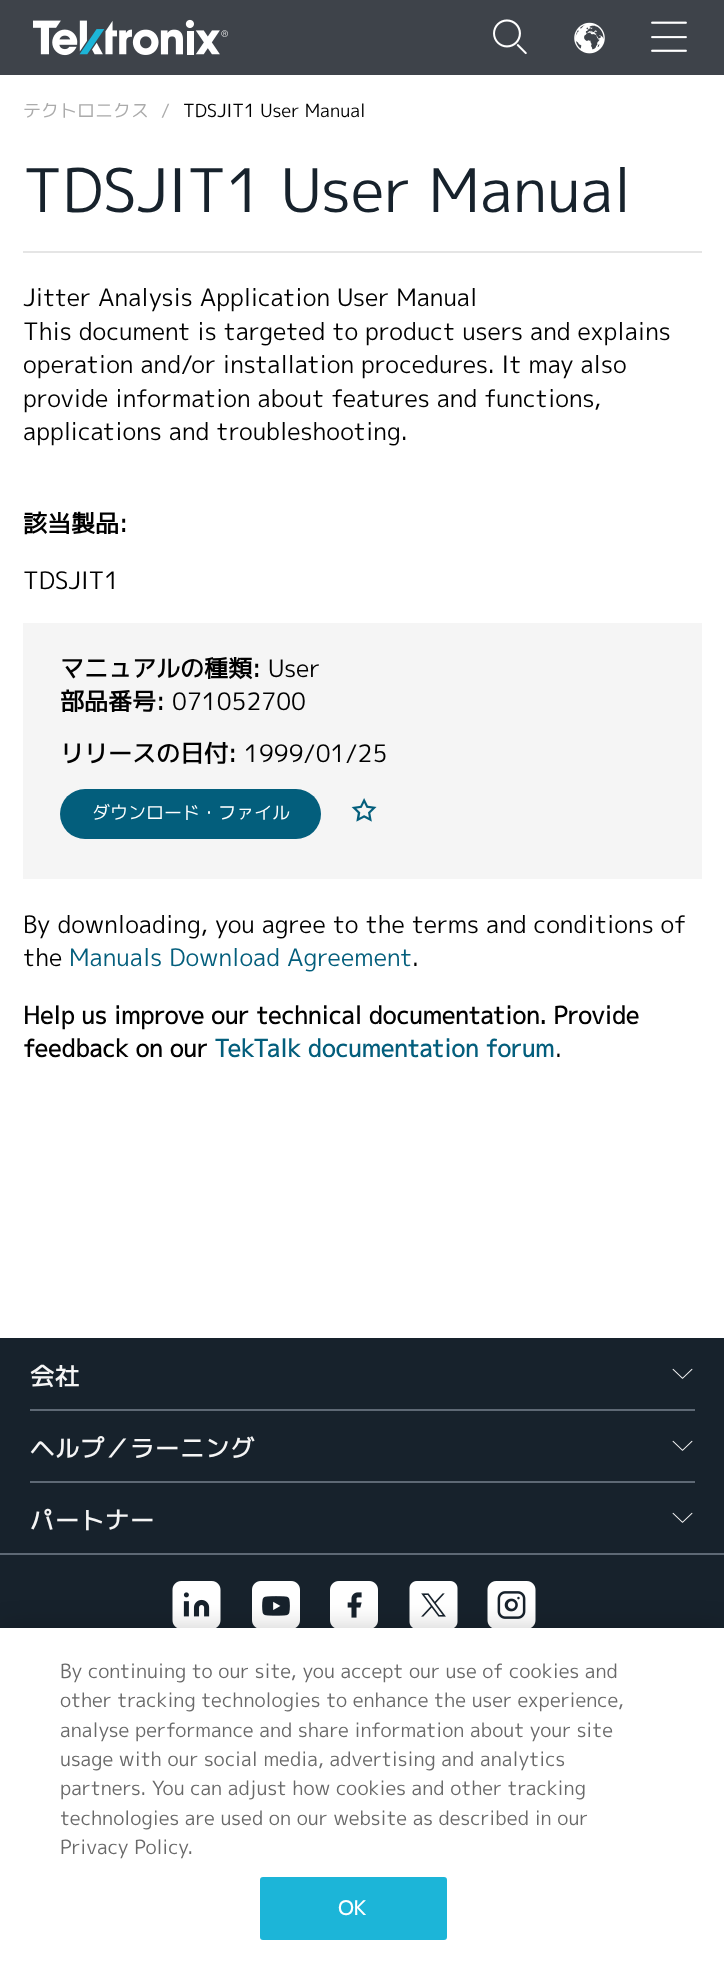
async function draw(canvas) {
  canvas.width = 724;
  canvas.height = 1963;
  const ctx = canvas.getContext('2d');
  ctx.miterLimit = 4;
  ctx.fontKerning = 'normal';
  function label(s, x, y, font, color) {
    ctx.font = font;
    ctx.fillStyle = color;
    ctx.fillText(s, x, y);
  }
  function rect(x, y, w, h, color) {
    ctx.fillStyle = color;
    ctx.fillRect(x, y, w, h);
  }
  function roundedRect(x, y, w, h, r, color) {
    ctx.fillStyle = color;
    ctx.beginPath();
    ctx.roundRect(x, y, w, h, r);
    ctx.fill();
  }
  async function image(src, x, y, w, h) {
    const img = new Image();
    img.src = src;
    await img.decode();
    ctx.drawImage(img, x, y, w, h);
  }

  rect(0, 0, 724, 1963, '#fff');
  rect(0, 0, 724, 75, '#3e434a');
  await image('assets/img1.png', 33, 19, 195, 37);
  await image('assets/img2.png', 493, 19, 34, 36);
  await image('assets/img3.png', 574, 22, 31, 32);
  await image('assets/img4.png', 651, 21, 36, 31);
  label('テクトロニクス', 23, 117, '18px "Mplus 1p"', '#ababab');
  label('/', 161, 117, '18px "Mplus 1p"', '#ababab');
  label('TDSJIT1 User Manual', 183, 117, '18px "Mplus 1p"', '#000');
  rect(23, 251, 679, 2, '#e5e5e5');
  label('TDSJIT1 User Manual', 23, 212, '60px "Mplus 1p"', '#17222c');
  label('Jitter Analysis Application User Manual', 23, 306, '24px "Mplus 1p"', '#000');
  label('This document is targeted to product users and explains', 23, 340, '24px "Mplus 1p"', '#000');
  label('operation and/or installation procedures. It may also', 23, 373, '24px "Mplus 1p"', '#000');
  label('provide information about features and functions,', 23, 407, '24px "Mplus 1p"', '#000');
  label('applications and troubleshooting.', 23, 440, '24px "Mplus 1p"', '#000');
  label('該当製品:', 23, 532, 'bold 24px "Mplus 1p"', '#000');
  label('TDSJIT1', 23, 589, '24px "Mplus 1p"', '#000');
  rect(23, 623, 679, 256, '#f5f5f5');
  label('マニュアルの種類:', 60, 677, 'bold 24px "Mplus 1p"', '#000');
  label('User', 268, 677, '24px "Mplus 1p"', '#000');
  label('部品番号:', 60, 710, 'bold 24px "Mplus 1p"', '#000');
  label('071052700', 172, 710, '24px "Mplus 1p"', '#000');
  label('リリースの日付:', 60, 762, 'bold 24px "Mplus 1p"', '#000');
  label('1999/01/25', 244, 762, '24px "Mplus 1p"', '#000');
  roundedRect(60, 789, 261, 50, 25, '#035e7c');
  label('ダウンロード・ファイル', 92, 819, '18px "Mplus 1p"', '#fff');
  await image('assets/img5.png', 351, 798, 26, 24);
  label('By downloading, you agree to the terms and conditions of', 23, 933, '24px "Mplus 1p"', '#000');
  label('the', 23, 966, '24px "Mplus 1p"', '#000');
  label('Manuals Download Agreement', 69, 966, '24px "Mplus 1p"', '#035e7c');
  label('.', 412, 966, '24px "Mplus 1p"', '#000');
  label('Help us improve our technical documentation. Provide', 23, 1024, 'bold 24px "Mplus 1p"', '#000');
  label('feedback on our', 23, 1057, 'bold 24px "Mplus 1p"', '#000');
  label('TekTalk documentation forum', 214, 1057, 'bold 24px "Mplus 1p"', '#035e7c');
  label('.', 555, 1057, '24px "Mplus 1p"', '#000');
  rect(0, 1338, 724, 290, '#17222c');
  ctx.letterSpacing = '1px';
  label('会社', 30, 1385, 'bold 24px "Mplus 1p"', '#f5f5f5');
  await image('assets/img6.png', 672, 1368, 21, 11);
  rect(30, 1409, 665, 2, '#5e6975');
  label('ヘルプ／ラーニング', 30, 1457, 'bold 24px "Mplus 1p"', '#f5f5f5');
  await image('assets/img6.png', 672, 1440, 21, 11);
  rect(30, 1481, 665, 2, '#5e6975');
  label('パートナー', 30, 1529, 'bold 24px "Mplus 1p"', '#f5f5f5');
  await image('assets/img6.png', 672, 1512, 21, 11);
  rect(0, 1553, 724, 2, '#5e6975');
  await image('assets/img7.png', 172, 1581, 49, 47);
  await image('assets/img8.png', 252, 1581, 48, 47);
  await image('assets/img9.png', 330, 1581, 48, 47);
  await image('assets/img10.png', 409, 1581, 49, 47);
  await image('assets/img11.png', 487, 1581, 49, 47);
  ctx.fillStyle = '#00000033';
  ctx.filter = 'blur(13.5px)';
  ctx.beginPath();
  ctx.rect(0, 1628, 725, 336);
  ctx.fill();
  ctx.filter = 'none';
  rect(0, 1628, 724, 335, '#fff');
  ctx.letterSpacing = '0px';
  label('By continuing to our site, you accept our use of cookies and', 60, 1678, '19.5px "Mplus 1p"', '#696969');
  label('other tracking technologies to enhance the user experience,', 60, 1707, '19.5px "Mplus 1p"', '#696969');
  label('analyse performance and share information about your site', 60, 1737, '19.5px "Mplus 1p"', '#696969');
  label('usage with our social media, advertising and analytics', 60, 1766, '19.5px "Mplus 1p"', '#696969');
  label('partners. You can adjust how cookies and other tracking', 60, 1795, '19.5px "Mplus 1p"', '#696969');
  label('technologies are used on our website as described in our', 60, 1825, '19.5px "Mplus 1p"', '#696969');
  label('Privacy Policy.', 60, 1854, '19.5px "Mplus 1p"', '#696969');
  ctx.fillStyle = '#1cb5d8';
  ctx.beginPath();
  ctx.roundRect(261, 1878, 185, 61, 2);
  ctx.fill();
  ctx.strokeStyle = '#1cb5d8';
  ctx.lineWidth = 2;
  ctx.stroke();
  label('OK', 338, 1915, 'bold 19.5px "Mplus 1p"', '#fff');
}

draw(document.querySelector('canvas'));
